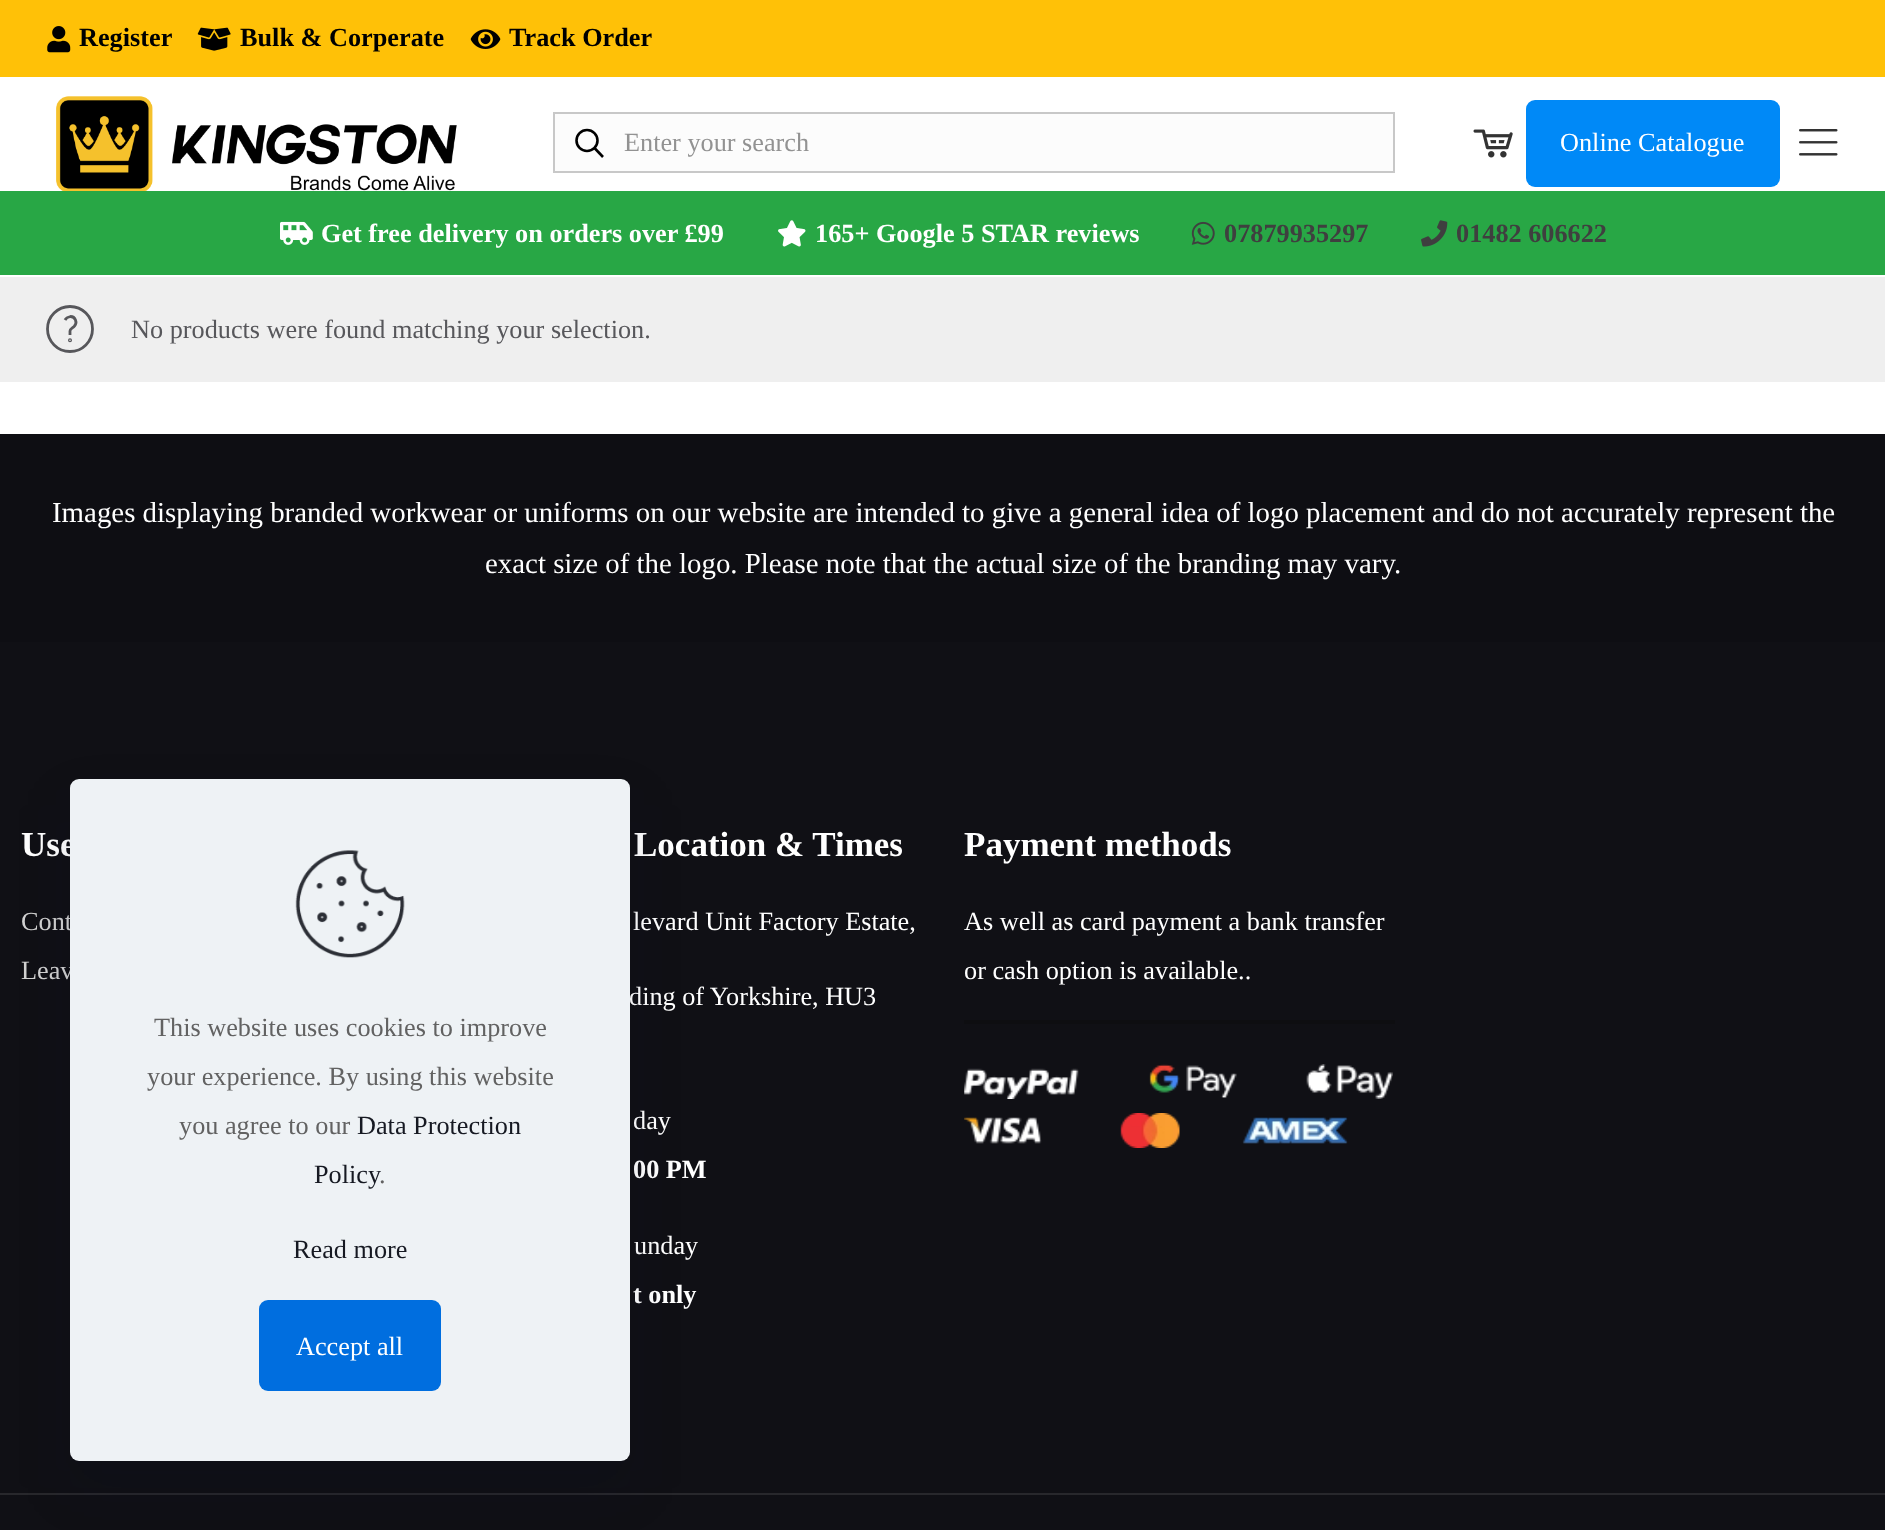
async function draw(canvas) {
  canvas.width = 1885;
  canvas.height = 1530;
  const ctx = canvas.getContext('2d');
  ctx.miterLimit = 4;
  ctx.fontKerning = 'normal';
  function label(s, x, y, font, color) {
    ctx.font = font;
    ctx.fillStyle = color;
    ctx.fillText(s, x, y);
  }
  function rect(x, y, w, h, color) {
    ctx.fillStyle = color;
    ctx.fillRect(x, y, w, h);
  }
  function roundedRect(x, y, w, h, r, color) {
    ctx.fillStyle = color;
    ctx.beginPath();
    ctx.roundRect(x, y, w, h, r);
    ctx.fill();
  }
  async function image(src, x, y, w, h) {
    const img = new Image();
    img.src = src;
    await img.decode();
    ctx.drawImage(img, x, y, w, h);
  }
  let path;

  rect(0, 0, 1885, 1530, '#fff');
  rect(0, 0, 1885, 77, '#ffc107');
  await image('assets/img1.png', 47, 26, 24, 27);
  label('Register', 79, 46, 'bold 26.25px Liberation Serif', '#000');
  await image('assets/img2.png', 197, 27, 34, 24);
  label('Bulk & Corperate', 240, 46, 'bold 26.25px Liberation Serif', '#000');
  await image('assets/img3.png', 470, 29, 31, 20);
  label('Track Order', 509, 46, 'bold 26.25px Liberation Serif', '#000');
  await image('assets/img4.png', 56, 96, 401, 95);
  ctx.fillStyle = '#fcfcfc';
  ctx.beginPath();
  ctx.rect(554, 113, 840, 59);
  ctx.fill();
  ctx.strokeStyle = '#c8c8c8';
  ctx.lineWidth = 2;
  ctx.stroke();
  ctx.beginPath();
  ctx.arc(587, 140.5, 10.5, 0, 2 * Math.PI);
  ctx.strokeStyle = '#000';
  ctx.lineWidth = 2.6;
  ctx.stroke();
  path = new Path2D('M594.5 148L603 157');
  ctx.stroke(path);
  label('Enter your search', 624, 151, '26.25px Liberation Serif', '#929292');
  await image('assets/img5.png', 1473, 129, 40, 29);
  roundedRect(1526, 100, 254, 87, 9, '#0089f7');
  label('Online Catalogue', 1560, 151, '26.25px Liberation Serif', '#fff');
  await image('assets/img6.png', 1799, 129, 39, 27);
  rect(0, 191, 1885, 84, '#28a745');
  await image('assets/img7.png', 280, 221, 33, 24);
  label('Get free delivery on orders over £99', 321, 242, 'bold 26.25px Liberation Serif', '#fff');
  await image('assets/img8.png', 778, 220, 28, 27);
  label('165+ Google 5 STAR reviews', 815, 242, 'bold 26.25px Liberation Serif', '#fff');
  await image('assets/img9.png', 1191, 221, 24, 24);
  label('07879935297', 1224, 242, 'bold 26.25px Liberation Serif', '#3f3f3f');
  await image('assets/img10.png', 1421, 220, 27, 27);
  label('01482 606622', 1456, 242, 'bold 26.25px Liberation Serif', '#3f3f3f');
  rect(0, 277, 1885, 105, '#efefef');
  ctx.beginPath();
  ctx.arc(70, 329, 22.5, 0, 2 * Math.PI);
  ctx.strokeStyle = '#57575b';
  ctx.lineWidth = 2.8;
  ctx.stroke();
  path = new Path2D('M65 320C66 318 68 317 70.5 316.5C75.5 316.5 77.5 322.5 74.5 326C73.5 327.5 70 329 70 331V335');
  ctx.stroke(path);
  ctx.beginPath();
  ctx.arc(70, 340.2, 0.6, 0, 2 * Math.PI);
  ctx.stroke();
  label('No products were found matching your selection.', 131, 338, '26.25px Liberation Serif', '#57575b');
  rect(0, 642, 1885, 888, '#101015');
  rect(0, 434, 1885, 208, '#0e0e13');
  label('Images displaying branded workwear or uniforms on our website are intended to give a general idea of logo placement and do not accurately represent the', 52, 522, '28.88px Liberation Serif', '#fff');
  label('exact size of the logo. Please note that the actual size of the branding may vary.', 485, 573, '28.88px Liberation Serif', '#fff');
  label('Use', 21, 856, 'bold 35px Liberation Serif', '#fff');
  label('Cont', 21, 930, '26.25px Liberation Serif', '#d1d1d1');
  label('Leav', 21, 979, '26.25px Liberation Serif', '#d1d1d1');
  label('Location & Times', 634, 856, 'bold 35px Liberation Serif', '#fff');
  label('levard Unit Factory Estate,', 633, 930, '26.25px Liberation Serif', '#fff');
  label('ding of Yorkshire, HU3', 629, 1005, '26.25px Liberation Serif', '#fff');
  label('day', 633, 1129, '26.25px Liberation Serif', '#fff');
  label('00 PM', 633, 1178, 'bold 26.25px Liberation Serif', '#fff');
  label('unday', 634, 1254, '26.25px Liberation Serif', '#fff');
  label('t only', 633, 1303, 'bold 26.25px Liberation Serif', '#fff');
  label('Payment methods', 964, 856, 'bold 35px Liberation Serif', '#fff');
  label('As well as card payment a bank transfer', 964, 930, '26.25px Liberation Serif', '#fff');
  label('or cash option is available..', 964, 979, '26.25px Liberation Serif', '#fff');
  rect(964, 1020, 431, 4, '#0e0e11');
  await image('assets/img11.png', 964, 1064, 429, 35);
  await image('assets/img12.png', 964, 1113, 384, 35);
  rect(0, 1493, 1885, 2, '#28282c');
  ctx.fillStyle = '#01072721';
  ctx.filter = 'blur(26px)';
  ctx.beginPath();
  ctx.roundRect(70, 805, 560, 683, 9);
  ctx.fill();
  ctx.filter = 'none';
  roundedRect(70, 779, 560, 682, 9, '#eef2f5');
  await image('assets/img13.png', 295, 850, 110, 108);
  label('This website uses cookies to improve', 154, 1036, '26.25px Liberation Serif', '#626262');
  label('your experience. By using this website', 147, 1085, '26.25px Liberation Serif', '#626262');
  label('you agree to our', 179, 1134, '26.25px Liberation Serif', '#626262');
  label('Data Protection', 357, 1134, '26.25px Liberation Serif', '#161922');
  label('Policy', 314, 1183, '26.25px Liberation Serif', '#161922');
  label('.', 379, 1183, '26.25px Liberation Serif', '#626262');
  label('Read more', 293, 1258, '26.25px Liberation Serif', '#161922');
  roundedRect(259, 1300, 182, 91, 9, '#006edf');
  label('Accept all', 296, 1355, '26.25px Liberation Serif', '#fff');
}

draw(document.querySelector('canvas'));
